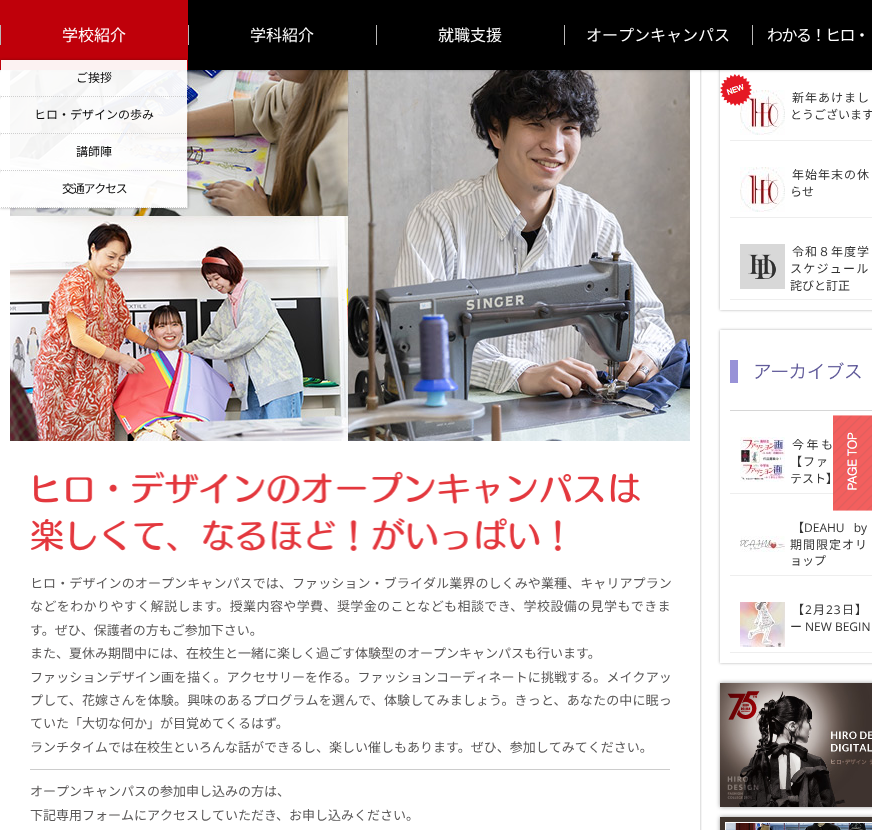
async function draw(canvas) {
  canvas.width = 872;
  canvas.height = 830;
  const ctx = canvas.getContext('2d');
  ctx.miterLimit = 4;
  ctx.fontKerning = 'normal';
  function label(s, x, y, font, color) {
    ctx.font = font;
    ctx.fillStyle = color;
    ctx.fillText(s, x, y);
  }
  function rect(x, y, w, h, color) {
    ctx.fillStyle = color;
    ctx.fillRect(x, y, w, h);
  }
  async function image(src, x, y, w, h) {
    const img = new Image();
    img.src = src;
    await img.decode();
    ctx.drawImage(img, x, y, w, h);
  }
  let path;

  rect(0, 0, 872, 830, '#fff');
  ctx.save();
  path = new Path2D('M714 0H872V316H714ZM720-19H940V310H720Z');
  ctx.clip(path, 'evenodd');
  ctx.fillStyle = '#0000004d';
  ctx.filter = 'blur(1.5px)';
  ctx.beginPath();
  ctx.rect(720, -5, 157, 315);
  ctx.fill();
  ctx.filter = 'none';
  ctx.restore();
  await image('assets/img2.png', 740, 90, 45, 45);
  await image('assets/img1.png', 720, 74, 32, 32);
  ctx.save();
  ctx.beginPath();
  ctx.rect(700, 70, 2, 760);
  ctx.clip();
  ctx.fillStyle = '#0000004d';
  ctx.filter = 'blur(1.5px)';
  ctx.beginPath();
  ctx.rect(0, -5, 700, 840);
  ctx.fill();
  ctx.filter = 'none';
  ctx.restore();
  await image('assets/img10.png', 10, 70, 680, 371);
  ctx.fillStyle = '#0000004d';
  ctx.filter = 'blur(1.5px)';
  ctx.beginPath();
  ctx.rect(0, 0, 872, 70);
  ctx.fill();
  ctx.filter = 'none';
  rect(188, 0, 684, 70, '#000');
  rect(0, 0, 188, 70, '#bf000a');
  rect(0, 25, 1, 20, '#b9b8b7');
  label('学校紹介', 62, 41, '16px Noto Sans JP', '#fff');
  ctx.save();
  path = new Path2D('M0 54H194V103H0ZM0 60H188V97H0Z');
  ctx.clip(path, 'evenodd');
  ctx.fillStyle = '#0000004d';
  ctx.filter = 'blur(1.5px)';
  ctx.beginPath();
  ctx.rect(0, 60, 188, 37);
  ctx.fill();
  ctx.filter = 'none';
  ctx.restore();
  ctx.save();
  path = new Path2D('M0 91H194V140H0ZM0 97H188V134H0Z');
  ctx.clip(path, 'evenodd');
  ctx.fillStyle = '#0000004d';
  ctx.filter = 'blur(1.5px)';
  ctx.beginPath();
  ctx.rect(0, 97, 188, 37);
  ctx.fill();
  ctx.filter = 'none';
  ctx.restore();
  rect(1, 60, 186, 37, '#fffffff2');
  path = new Path2D('M1 96.5H187');
  ctx.strokeStyle = '#ccccccf2';
  ctx.setLineDash([1, 1]);
  ctx.stroke(path);
  label('ご挨拶', 76, 82, '12px Noto Sans JP', '#0c0c0c');
  ctx.save();
  path = new Path2D('M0 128H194V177H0ZM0 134H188V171H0Z');
  ctx.clip(path, 'evenodd');
  ctx.fillStyle = '#0000004d';
  ctx.filter = 'blur(1.5px)';
  ctx.beginPath();
  ctx.rect(0, 134, 188, 37);
  ctx.fill();
  ctx.filter = 'none';
  ctx.restore();
  rect(1, 97, 186, 37, '#fffffff2');
  path = new Path2D('M1 133.5H187');
  ctx.stroke(path);
  label('ヒロ・デザインの歩み', 34, 119, '12px Noto Sans JP', '#0c0c0c');
  ctx.save();
  path = new Path2D('M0 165H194V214H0ZM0 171H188V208H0Z');
  ctx.clip(path, 'evenodd');
  ctx.fillStyle = '#0000004d';
  ctx.filter = 'blur(1.5px)';
  ctx.beginPath();
  ctx.rect(0, 171, 188, 37);
  ctx.fill();
  ctx.filter = 'none';
  ctx.restore();
  rect(1, 134, 186, 37, '#fffffff2');
  path = new Path2D('M1 170.5H187');
  ctx.stroke(path);
  label('講師陣', 76, 156, '12px Noto Sans JP', '#0c0c0c');
  rect(1, 171, 186, 37, '#fffffff2');
  path = new Path2D('M1 207.5H187');
  ctx.stroke(path);
  ctx.letterSpacing = '-1.25px';
  label('交通アクセス', 62, 193, '12px Noto Sans JP', '#0c0c0c');
  rect(188, 25, 1, 20, '#b9b8b7');
  ctx.letterSpacing = '0px';
  label('学科紹介', 250, 41, '16px Noto Sans JP', '#fff');
  rect(376, 25, 1, 20, '#b9b8b7');
  label('就職支援', 438, 41, '16px Noto Sans JP', '#fff');
  rect(564, 25, 1, 20, '#b9b8b7');
  label('オープンキャンパス', 586, 41, '16px Noto Sans JP', '#fff');
  rect(752, 25, 1, 20, '#b9b8b7');
  ctx.letterSpacing = '-1.5px';
  label('わかる！ヒロ・', 767, 41, '16px Noto Sans JP', '#fff');
  rect(730, 140, 142, 1, '#eee');
  ctx.letterSpacing = '1px';
  label('新年あけまし', 792, 102, '12px Noto Sans JP', '#333');
  ctx.letterSpacing = '0px';
  label('とうございます', 790, 119, '12px Noto Sans JP', '#333');
  rect(730, 217, 142, 1, '#eee');
  await image('assets/img2.png', 740, 167, 45, 45);
  ctx.letterSpacing = '1px';
  label('年始年末の休', 792, 179, '12px Noto Sans JP', '#333');
  ctx.letterSpacing = '0px';
  label('らせ', 790, 196, '12px Noto Sans JP', '#333');
  rect(730, 299, 142, 1, '#eee');
  await image('assets/img3.png', 740, 244, 45, 45);
  ctx.letterSpacing = '1px';
  label('令和８年度学', 792, 256, '12px Noto Sans JP', '#333');
  ctx.letterSpacing = '1.25px';
  label('スケジュール', 790, 273, '12px Noto Sans JP', '#333');
  ctx.letterSpacing = '0px';
  label('詫びと訂正', 790, 290, '12px Noto Sans JP', '#333');
  ctx.save();
  path = new Path2D('M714 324H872V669H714ZM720 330H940V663H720Z');
  ctx.clip(path, 'evenodd');
  ctx.fillStyle = '#0000004d';
  ctx.filter = 'blur(1.5px)';
  ctx.beginPath();
  ctx.rect(720, 330, 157, 333);
  ctx.fill();
  ctx.filter = 'none';
  ctx.restore();
  await image('assets/img4.png', 730, 360, 131, 23);
  rect(730, 410, 142, 1, '#d6d6d6');
  rect(730, 493, 103, 1, '#eee');
  await image('assets/img5.png', 740, 437, 45, 45);
  ctx.letterSpacing = '2.5px';
  label('今年も', 792, 449, '12px Noto Sans JP', '#333');
  ctx.letterSpacing = '1px';
  label('【ファ', 790, 466, '12px Noto Sans JP', '#333');
  ctx.letterSpacing = '0px';
  label('テスト】', 790, 483, '12px Noto Sans JP', '#333');
  rect(730, 575, 142, 1, '#eee');
  label('【', 792, 532, '12px Noto Sans JP', '#333');
  ctx.wordSpacing = '6px';
  label('DEAHU by', 804, 532, '12px Open Sans', '#333');
  await image('assets/img6.png', 740, 536, 45, 16);
  ctx.letterSpacing = '1px';
  ctx.wordSpacing = '0px';
  label('期間限定オリ', 790, 549, '12px Noto Sans JP', '#333');
  ctx.letterSpacing = '0px';
  label('ョップ', 790, 565, '12px Noto Sans JP', '#333');
  rect(730, 652, 142, 1, '#eee');
  await image('assets/img7.png', 740, 602, 45, 45);
  ctx.letterSpacing = '1px';
  label('【', 792, 614, '12px Noto Sans JP', '#333');
  label('2', 805, 614, '12px Open Sans', '#333');
  label('月', 813, 614, '12px Noto Sans JP', '#333');
  label('23', 826, 614, '12px Open Sans', '#333');
  label('日】', 842, 614, '12px Noto Sans JP', '#333');
  ctx.letterSpacing = '0px';
  label('ー', 790, 631, '12px Noto Sans JP', '#333');
  label('NEW BEGIN', 805, 631, '12px Open Sans', '#333');
  ctx.fillStyle = '#00000066';
  ctx.filter = 'blur(2px)';
  ctx.beginPath();
  ctx.rect(720, 683, 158, 124);
  ctx.fill();
  ctx.filter = 'none';
  await image('assets/img8.png', 720, 683, 152, 124);
  ctx.filter = 'blur(2px)';
  ctx.beginPath();
  ctx.rect(720, 817, 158, 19);
  ctx.fill();
  ctx.filter = 'none';
  await image('assets/img9.png', 720, 817, 152, 13);
  await image('assets/img11.png', 31, 471, 609, 81);
  rect(30, 769, 640, 1, '#ccc');
  ctx.letterSpacing = '0.1px';
  label('ヒロ・デザインのオープンキャンパスでは、ファッション・ブライダル業界のしくみや業種、キャリアプラン', 30, 588, '13px Noto Sans JP', '#595757');
  ctx.letterSpacing = '0.4px';
  label('などをわかりやすく解説します。授業内容や学費、奨学金のことなども相談でき、学校設備の見学もできま', 30, 611, '13px Noto Sans JP', '#595757');
  ctx.letterSpacing = '0px';
  label('す。ぜひ、保護者の方もご参加下さい。', 30, 635, '13px Noto Sans JP', '#595757');
  label('また、夏休み期間中には、在校生と一緒に楽しく過ごす体験型のオープンキャンパスも行います。', 30, 658, '13px Noto Sans JP', '#595757');
  ctx.letterSpacing = '0.1px';
  label('ファッションデザイン画を描く。アクセサリーを作る。ファッションコーディネートに挑戦する。メイクアッ', 30, 682, '13px Noto Sans JP', '#595757');
  ctx.letterSpacing = '0.15px';
  label('プして、花嫁さんを体験。興味のあるプログラムを選んで、体験してみましょう。きっと、あなたの中に眠っ', 30, 705, '13px Noto Sans JP', '#595757');
  ctx.letterSpacing = '0px';
  label('ていた「大切な何か」が目覚めてくるはず。', 30, 728, '13px Noto Sans JP', '#595757');
  label('ランチタイムでは在校生といろんな話ができるし、楽しい催しもあります。ぜひ、参加してみてください。', 30, 752, '13px Noto Sans JP', '#595757');
  label('オープンキャンパスの参加申し込みの方は、', 30, 796, '13px Noto Sans JP', '#595757');
  label('下記専用フォームにアクセスしていただき、お申し込みください。', 30, 820, '13px Noto Sans JP', '#595757');
  await image('assets/img12.png', 833, 415, 39, 96);
}

draw(document.querySelector('canvas'));
